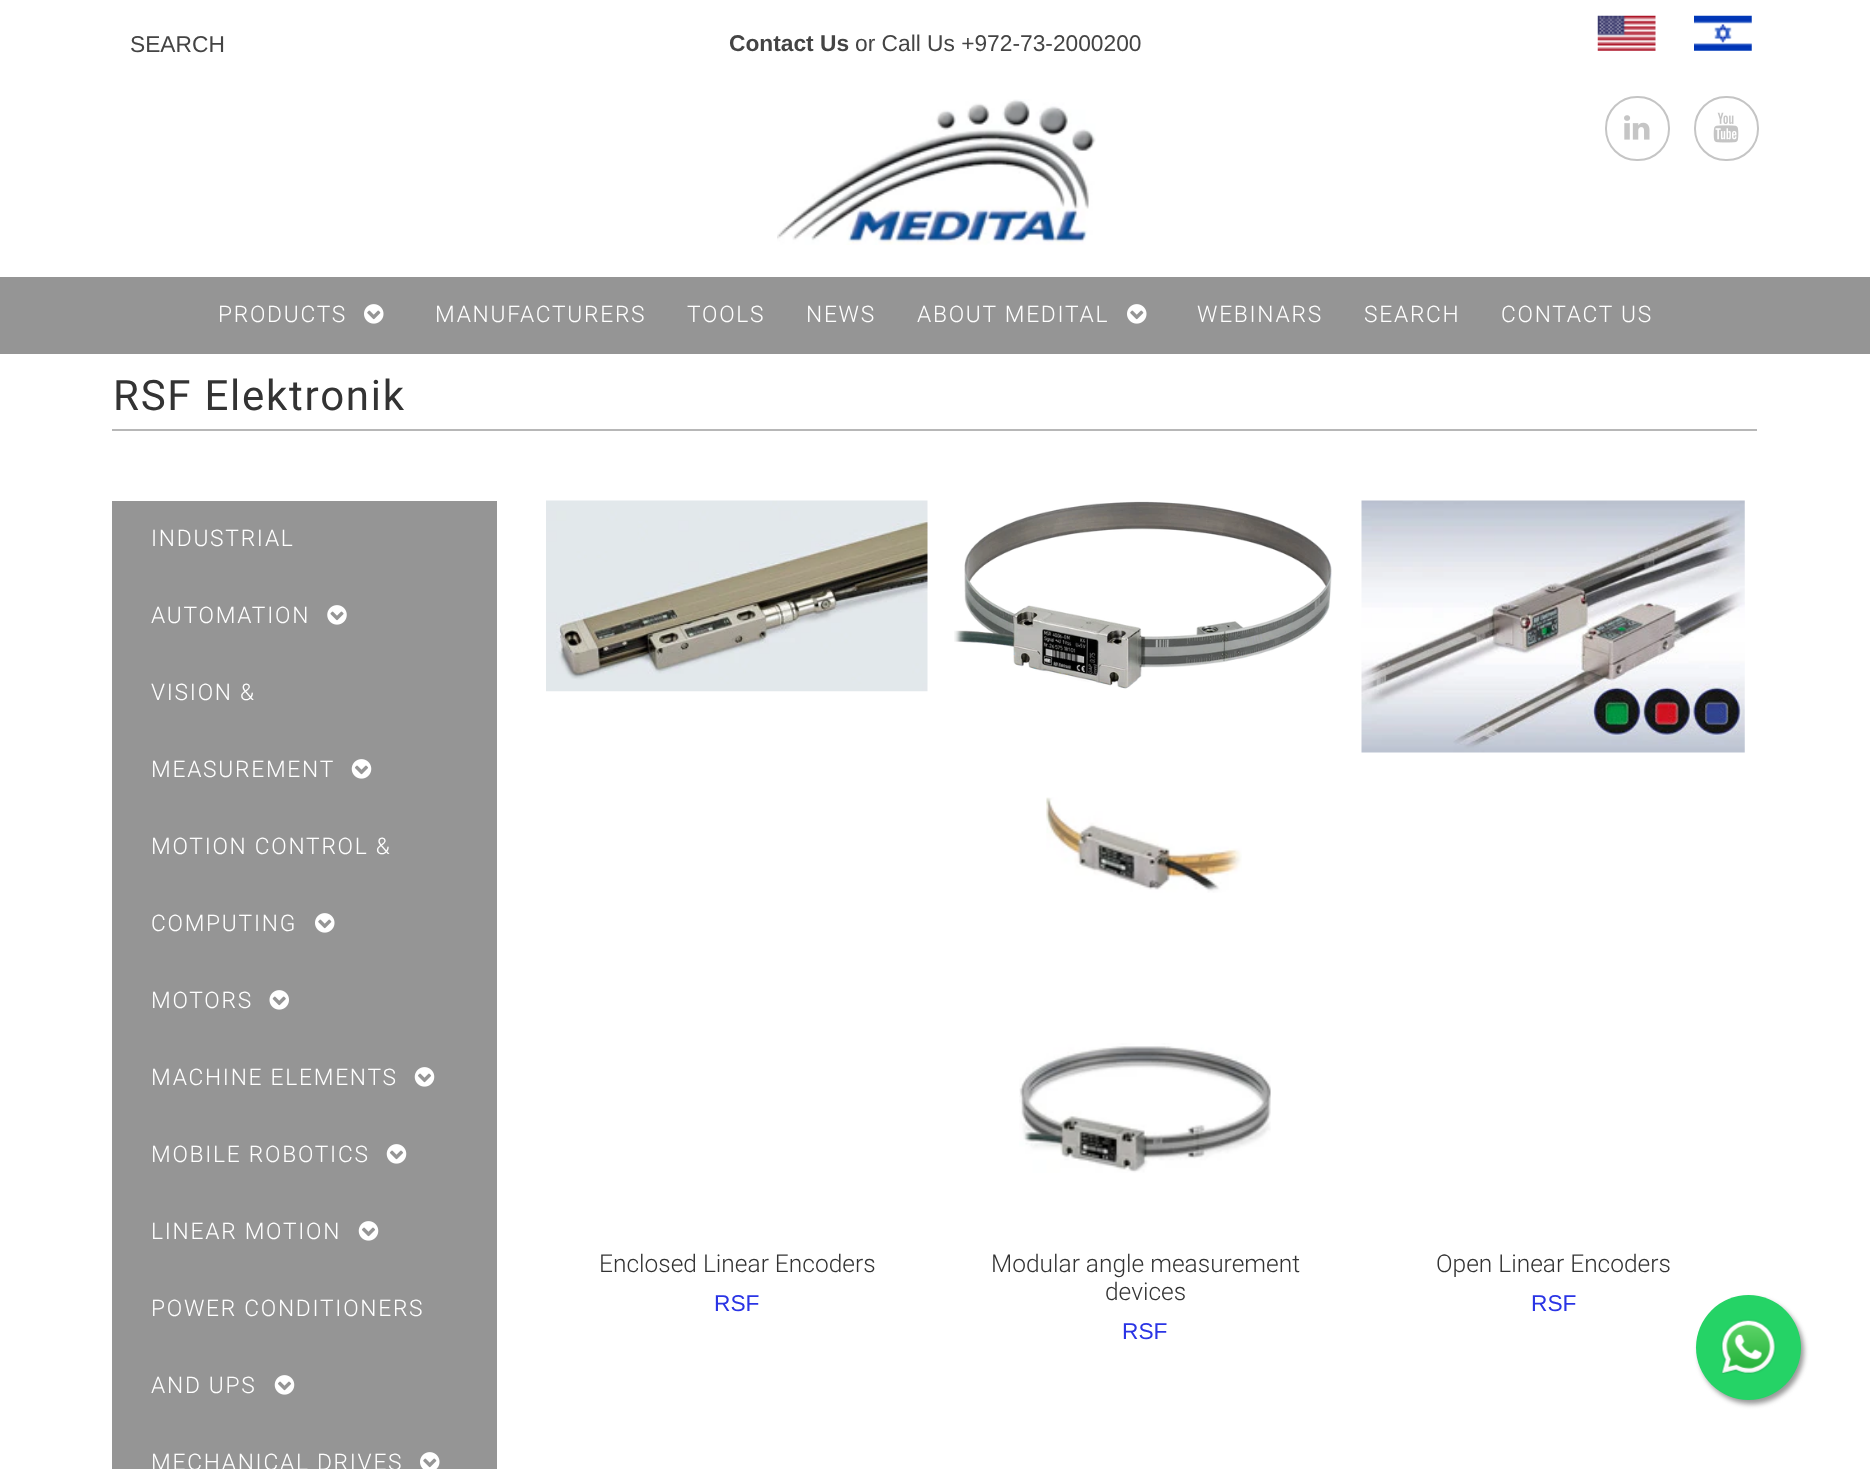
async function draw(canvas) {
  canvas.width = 1870;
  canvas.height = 1469;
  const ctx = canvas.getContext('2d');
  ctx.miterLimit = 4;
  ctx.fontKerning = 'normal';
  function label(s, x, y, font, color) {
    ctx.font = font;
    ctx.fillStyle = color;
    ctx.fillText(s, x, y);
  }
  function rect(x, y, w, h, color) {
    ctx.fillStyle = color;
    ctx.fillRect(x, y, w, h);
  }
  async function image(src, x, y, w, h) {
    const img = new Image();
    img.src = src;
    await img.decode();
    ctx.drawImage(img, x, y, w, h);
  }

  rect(0, 0, 1870, 1469, '#fff');
  label('SEARCH', 130, 52, '22.75px Liberation Sans', '#444');
  label('Contact Us', 729, 51, 'bold 22.75px Liberation Sans', '#444');
  label('or Call Us +972-73-2000200', 855, 51, '22.75px Liberation Sans', '#444');
  await image('assets/img1.png', 1597, 15, 59, 36);
  await image('assets/img2.png', 1694, 15, 58, 36);
  await image('assets/img3.png', 777, 99, 319, 146);
  ctx.beginPath();
  ctx.roundRect(1606, 97, 63, 63, 31);
  ctx.strokeStyle = '#c5c5c5';
  ctx.lineWidth = 2;
  ctx.stroke();
  await image('assets/img4.png', 1624, 115, 26, 25);
  ctx.beginPath();
  ctx.roundRect(1695, 97, 63, 63, 31);
  ctx.stroke();
  await image('assets/img5.png', 1713, 112, 26, 31);
  rect(0, 277, 1870, 77, '#959595');
  ctx.letterSpacing = '1.75px';
  label('PRODUCTS', 218, 322, '300 22.75px Roboto', '#fff');
  await image('assets/img6.png', 364, 304, 20, 20);
  label('MANUFACTURERS', 435, 322, '300 22.75px Roboto', '#fff');
  label('TOOLS', 687, 322, '300 22.75px Roboto', '#fff');
  label('NEWS', 806, 322, '300 22.75px Roboto', '#fff');
  label('ABOUT MEDITAL', 917, 322, '300 22.75px Roboto', '#fff');
  await image('assets/img6.png', 1127, 304, 20, 20);
  label('WEBINARS', 1197, 322, '300 22.75px Roboto', '#fff');
  label('SEARCH', 1364, 322, '300 22.75px Roboto', '#fff');
  label('CONTACT US', 1501, 322, '300 22.75px Roboto', '#fff');
  rect(112, 429, 1645, 2, '#b7b7b7');
  label('RSF Elektronik', 113, 410, '42px Roboto', '#333');
  rect(112, 501, 385, 968, '#959595');
  label('INDUSTRIAL', 151, 546, '300 22.75px Roboto', '#fff');
  label('AUTOMATION', 151, 623, '300 22.75px Roboto', '#fff');
  await image('assets/img7.png', 327, 605, 20, 20);
  label('VISION &', 151, 700, '300 22.75px Roboto', '#fff');
  label('MEASUREMENT', 151, 777, '300 22.75px Roboto', '#fff');
  await image('assets/img8.png', 351, 759, 21, 20);
  label('MOTION CONTROL &', 151, 854, '300 22.75px Roboto', '#fff');
  label('COMPUTING', 151, 931, '300 22.75px Roboto', '#fff');
  await image('assets/img6.png', 315, 913, 20, 20);
  label('MOTORS', 151, 1008, '300 22.75px Roboto', '#fff');
  await image('assets/img9.png', 269, 990, 20, 20);
  label('MACHINE ELEMENTS', 151, 1085, '300 22.75px Roboto', '#fff');
  await image('assets/img8.png', 414, 1067, 21, 20);
  label('MOBILE ROBOTICS', 151, 1162, '300 22.75px Roboto', '#fff');
  await image('assets/img8.png', 386, 1144, 21, 20);
  label('LINEAR MOTION', 151, 1239, '300 22.75px Roboto', '#fff');
  await image('assets/img8.png', 358, 1221, 21, 20);
  label('POWER CONDITIONERS', 151, 1316, '300 22.75px Roboto', '#fff');
  label('AND UPS', 151, 1393, '300 22.75px Roboto', '#fff');
  await image('assets/img8.png', 274, 1375, 21, 20);
  label('MECHANICAL DRIVES', 151, 1470, '300 22.75px Roboto', '#fff');
  await image('assets/img10.png', 420, 1452, 20, 17);
  await image('assets/img11.png', 546, 500, 382, 192);
  ctx.letterSpacing = '0px';
  label('Enclosed Linear Encoders', 599, 1272, '300 24.5px Roboto', '#333');
  label('RSF', 714, 1311, '22.75px Liberation Sans', '#2a34e5');
  await image('assets/img12.png', 954, 501, 378, 188);
  await image('assets/img13.png', 1046, 797, 196, 96);
  await image('assets/img14.png', 1019, 1043, 252, 130);
  label('Modular angle measurement', 991, 1272, '300 24.5px Roboto', '#333');
  label('devices', 1105, 1300, '300 24.5px Roboto', '#333');
  label('RSF', 1122, 1339, '22.75px Liberation Sans', '#2a34e5');
  await image('assets/img15.png', 1361, 500, 384, 253);
  label('Open Linear Encoders', 1436, 1272, '300 24.5px Roboto', '#333');
  label('RSF', 1531, 1311, '22.75px Liberation Sans', '#2a34e5');
  ctx.fillStyle = '#999';
  ctx.filter = 'blur(2.5px)';
  ctx.beginPath();
  ctx.roundRect(1699, 1299, 105, 105, 52.5);
  ctx.fill();
  ctx.filter = 'none';
  ctx.fillStyle = '#25d366';
  ctx.beginPath();
  ctx.arc(1748.5, 1347.5, 52.5, 0, 2 * Math.PI);
  ctx.fill();
  await image('assets/img16.png', 1721, 1319, 55, 55);
}

draw(document.querySelector('canvas'));
